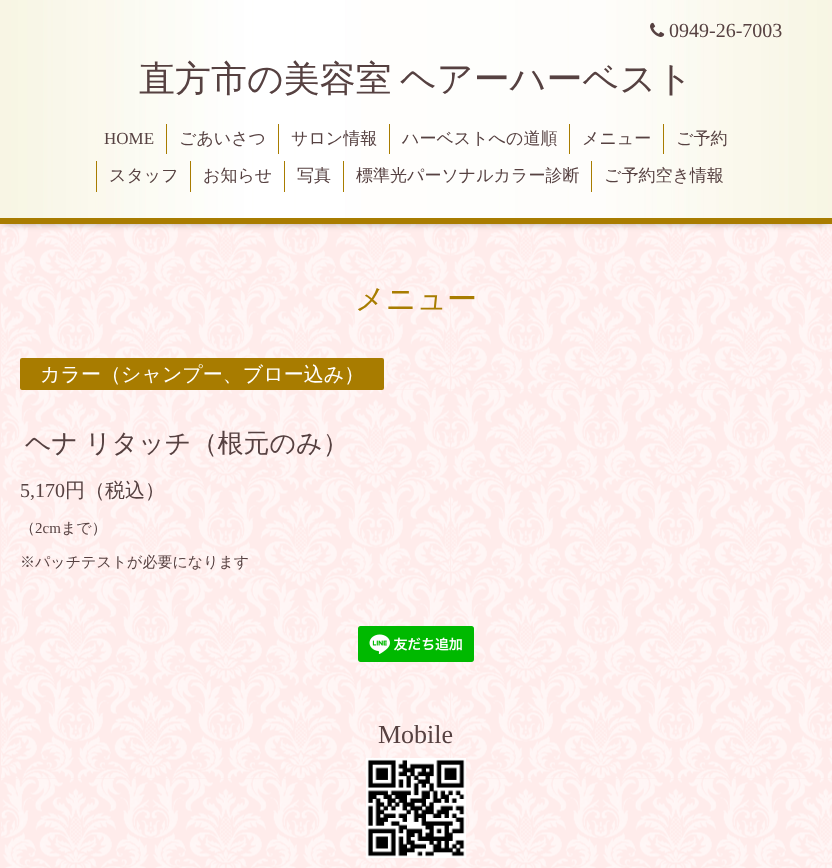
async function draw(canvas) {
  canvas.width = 832;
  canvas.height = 868;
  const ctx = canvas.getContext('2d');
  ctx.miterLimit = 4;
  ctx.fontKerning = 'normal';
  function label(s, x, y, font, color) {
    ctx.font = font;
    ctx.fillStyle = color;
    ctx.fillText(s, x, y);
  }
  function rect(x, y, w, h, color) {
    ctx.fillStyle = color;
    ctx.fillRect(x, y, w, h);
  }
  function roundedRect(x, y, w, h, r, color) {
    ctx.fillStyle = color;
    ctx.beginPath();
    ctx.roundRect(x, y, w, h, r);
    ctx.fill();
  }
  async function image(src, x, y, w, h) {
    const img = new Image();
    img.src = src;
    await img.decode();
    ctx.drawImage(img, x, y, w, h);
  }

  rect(0, 0, 832, 868, '#ffeceb');
  await image('assets/img1.png', 1, 224, 831, 644);
  ctx.fillStyle = '#00000099';
  ctx.filter = 'blur(5px)';
  ctx.beginPath();
  ctx.rect(4, 5, 824, 216);
  ctx.fill();
  ctx.filter = 'none';
  await image('assets/img2.png', 0, 0, 832, 218);
  rect(0, 218, 832, 6, '#a87c00');
  await image('assets/img3.png', 650, 22, 15, 15);
  label('0949-26-7003', 669, 37, '20px Liberation Serif', '#564141');
  label('直方市の美容室', 139, 91, '500 36px WenQuanYi Zen Hei', '#564141');
  label('ヘアーハーベスト', 400, 91, '500 36px WenQuanYi Zen Hei', '#564141');
  label('HOME', 104, 144, '17px Liberation Serif', '#564141');
  rect(166, 124, 1, 30, '#a87c00');
  label('ごあいさつ', 179, 144, '500 17px WenQuanYi Zen Hei', '#564141');
  rect(278, 124, 1, 30, '#a87c00');
  label('サロン情報', 291, 144, '500 17px WenQuanYi Zen Hei', '#564141');
  rect(389, 124, 1, 30, '#a87c00');
  label('ハーベストへの道順', 402, 144, '500 17px WenQuanYi Zen Hei', '#564141');
  rect(569, 124, 1, 30, '#a87c00');
  label('メニュー', 582, 144, '500 17px WenQuanYi Zen Hei', '#564141');
  rect(663, 124, 1, 30, '#a87c00');
  label('ご予約', 676, 144, '500 17px WenQuanYi Zen Hei', '#564141');
  rect(96, 161, 1, 31, '#a87c00');
  label('スタッフ', 109, 181, '500 17px WenQuanYi Zen Hei', '#564141');
  rect(190, 161, 1, 31, '#a87c00');
  label('お知らせ', 203, 181, '500 17px WenQuanYi Zen Hei', '#564141');
  rect(284, 161, 1, 31, '#a87c00');
  label('写真', 297, 181, '500 17px WenQuanYi Zen Hei', '#564141');
  rect(343, 161, 1, 31, '#a87c00');
  label('標準光パーソナルカラー診断', 356, 181, '500 17px WenQuanYi Zen Hei', '#564141');
  rect(591, 161, 1, 31, '#a87c00');
  label('ご予約空き情報', 604, 181, '500 17px WenQuanYi Zen Hei', '#564141');
  label('メニュー', 355, 309, '500 30px WenQuanYi Zen Hei', '#a87c00');
  roundedRect(20, 358, 364, 32, 2, '#a87c00');
  label('カラー（シャンプー、ブロー込み）', 40, 381, '500 20px WenQuanYi Zen Hei', '#fff');
  ctx.wordSpacing = '-1px';
  label('ヘナ リタッチ（根元のみ）', 25, 452, '500 26px WenQuanYi Zen Hei', '#564141');
  ctx.wordSpacing = '0px';
  label('5,170', 20, 497, '20px Liberation Serif', '#564141');
  label('円（税込）', 65, 497, '500 20px WenQuanYi Zen Hei', '#564141');
  label('（', 20, 533, '500 15px WenQuanYi Zen Hei', '#564141');
  label('2cm', 35, 533, '15px Liberation Serif', '#564141');
  label('まで）', 61, 533, '500 15px WenQuanYi Zen Hei', '#564141');
  label('※パッチテストが必要になります', 20, 567, '500 15px WenQuanYi Zen Hei', '#564141');
  await image('assets/img4.png', 358, 626, 116, 36);
  label('Mobile', 378, 743, '26px Liberation Serif', '#564141');
  await image('assets/img5.png', 366, 758, 100, 100);
}

draw(document.querySelector('canvas'));
